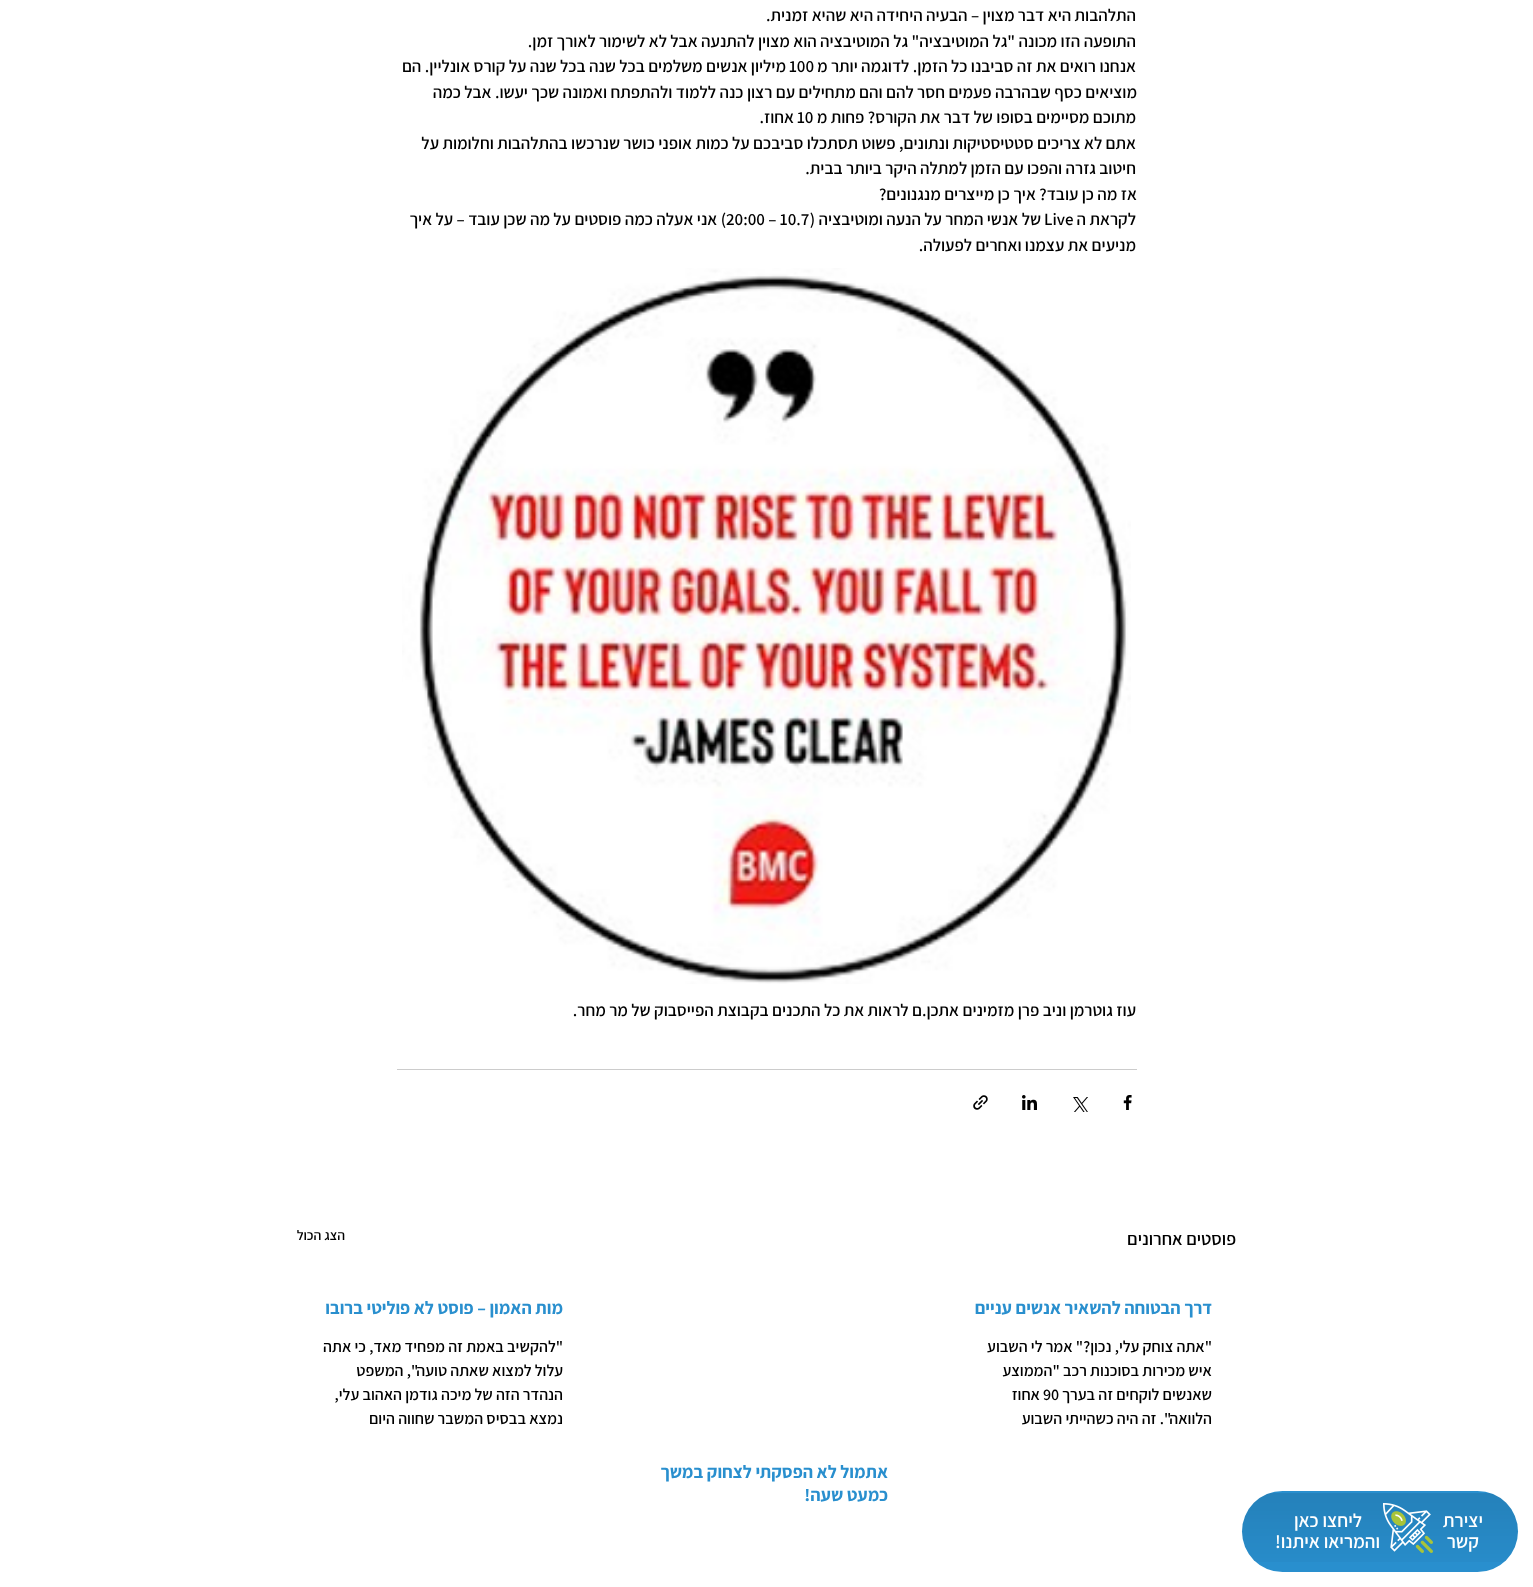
async function draw(canvas) {
  canvas.width = 1533;
  canvas.height = 1587;
  const ctx = canvas.getContext('2d');
  ctx.miterLimit = 4;
  ctx.fontKerning = 'normal';
  function label(s, x, y, font, color) {
    ctx.font = font;
    ctx.fillStyle = color;
    ctx.fillText(s, x, y);
  }
  function rect(x, y, w, h, color) {
    ctx.fillStyle = color;
    ctx.fillRect(x, y, w, h);
  }
  function roundedRect(x, y, w, h, r, color) {
    ctx.fillStyle = color;
    ctx.beginPath();
    ctx.roundRect(x, y, w, h, r);
    ctx.fill();
  }
  async function image(src, x, y, w, h) {
    const img = new Image();
    img.src = src;
    await img.decode();
    ctx.drawImage(img, x, y, w, h);
  }

  rect(0, 0, 1533, 1587, '#fff');
  ctx.direction = 'rtl';
  label('התלהבות היא דבר מצוין – הבעיה היחידה היא שהיא זמנית.', 1136, 21, '600 17px Assistant', '#000');
  label('התופעה הזו מכונה "גל המוטיבציה" גל המוטיבציה הוא מצוין להתנעה אבל לא לשימור לאורך זמן.', 1136, 47, '600 17px Assistant', '#000');
  label('אנחנו רואים את זה סביבנו כל הזמן. לדוגמה יותר מ', 1136, 72, '600 17px Assistant', '#000');
  ctx.direction = 'ltr';
  label('100', 789, 72, '600 17px Assistant', '#000');
  ctx.direction = 'rtl';
  label('מיליון אנשים משלמים בכל שנה בכל שנה על קורס אונליין. הם', 786, 72, '600 17px Assistant', '#000');
  label('מוציאים כסף שבהרבה פעמים חסר להם והם מתחילים עם רצון כנה ללמוד ולהתפתח ואמונה שכך יעשו. אבל כמה', 1137, 98, '600 17px Assistant', '#000');
  label('מתוכם מסיימים בסופו של דבר את הקורס? פחות מ', 1136, 123, '600 17px Assistant', '#000');
  ctx.direction = 'ltr';
  label('10', 797, 123, '600 17px Assistant', '#000');
  ctx.direction = 'rtl';
  label('אחוז.', 794, 123, '600 17px Assistant', '#000');
  label('אתם לא צריכים סטטיסטיקות ונתונים, פשוט תסתכלו סביבכם על כמות אופני כושר שנרכשו בהתלהבות וחלומות על', 1136, 149, '600 17px Assistant', '#000');
  label('חיטוב גזרה והפכו עם הזמן למתלה היקר ביותר בבית.', 1136, 174, '600 17px Assistant', '#000');
  label('אז מה כן עובד? איך כן מייצרים מנגנונים?', 1137, 200, '600 17px Assistant', '#000');
  label('לקראת ה', 1136, 225, '600 17px Assistant', '#000');
  ctx.direction = 'ltr';
  label('Live', 1044, 225, '600 17px Assistant', '#000');
  ctx.direction = 'rtl';
  label('של אנשי המחר על הנעה ומוטיבציה (', 1041, 225, '600 17px Assistant', '#000');
  ctx.direction = 'ltr';
  label('20:00 – 10.7', 726, 225, '600 17px Assistant', '#000');
  ctx.direction = 'rtl';
  label(') אני אעלה כמה פוסטים על מה שכן עובד – על איך', 726, 225, '600 17px Assistant', '#000');
  label('מניעים את עצמנו ואחרים לפעולה.', 1136, 251, '600 17px Assistant', '#000');
  await image('assets/img1.png', 402, 268, 729, 716);
  label('עוז גוטרמן וניב פרן מזמינים אתכן.ם לראות את כל התכנים בקבוצת הפייסבוק של מר מחר.', 1136, 1016, '600 17px Assistant', '#000');
  rect(397, 1069, 740, 1, '#ccc');
  await image('assets/img2.png', 1123, 1095, 9, 15);
  await image('assets/img3.png', 1073, 1097, 15, 15);
  await image('assets/img4.png', 1022, 1095, 15, 15);
  await image('assets/img5.png', 973, 1095, 15, 15);
  label('פוסטים אחרונים', 1236, 1245, '600 18px Assistant', '#000');
  label('הצג הכול', 345, 1240, '600 14px Assistant', '#000');
  label('דרך הבטוחה להשאיר אנשים עניים', 1212, 1314, 'bold 18px Assistant', '#298fce');
  label('"אתה צוחק עלי, נכון?" אמר לי השבוע', 1212, 1352, '600 16px Assistant', '#000');
  label('איש מכירות בסוכנות רכב "הממוצע', 1212, 1376, '600 16px Assistant', '#000');
  label('שאנשים לוקחים זה בערך', 1212, 1400, '600 16px Assistant', '#000');
  ctx.direction = 'ltr';
  label('90', 1043, 1400, '600 16px Assistant', '#000');
  ctx.direction = 'rtl';
  label('אחוז', 1040, 1400, '600 16px Assistant', '#000');
  label('הלוואה". זה היה כשהייתי השבוע', 1212, 1424, '600 16px Assistant', '#000');
  label('מות האמון – פוסט לא פוליטי ברובו', 563, 1314, 'bold 18px Assistant', '#298fce');
  label('"להקשיב באמת זה מפחיד מאד, כי אתה', 563, 1352, '600 16px Assistant', '#000');
  label('עלול למצוא שאתה טועה", המשפט', 563, 1376, '600 16px Assistant', '#000');
  label('הנהדר הזה של מיכה גודמן האהוב עלי,', 563, 1400, '600 16px Assistant', '#000');
  label('נמצא בבסיס המשבר שחווה היום', 563, 1424, '600 16px Assistant', '#000');
  label('אתמול לא הפסקתי לצחוק במשך', 888, 1478, 'bold 18px Assistant', '#298fce');
  label('כמעט שעה!', 888, 1501, 'bold 18px Assistant', '#298fce');
  roundedRect(1242, 1491, 276, 81, 40.5, '#298fce');
  await image('assets/img6.png', 1242, 1493, 276, 69);
  label('יצירת', 1483, 1527, '600 19px Assistant', '#fff');
  label('קשר', 1479, 1548, '600 19px Assistant', '#fff');
  await image('assets/img7.png', 1383, 1503, 50, 50);
  label('ליחצו כאן', 1362, 1527, '600 19px Assistant', '#fff');
  label('והמריאו איתנו!', 1380, 1548, '600 19px Assistant', '#fff');
}

draw(document.querySelector('canvas'));
